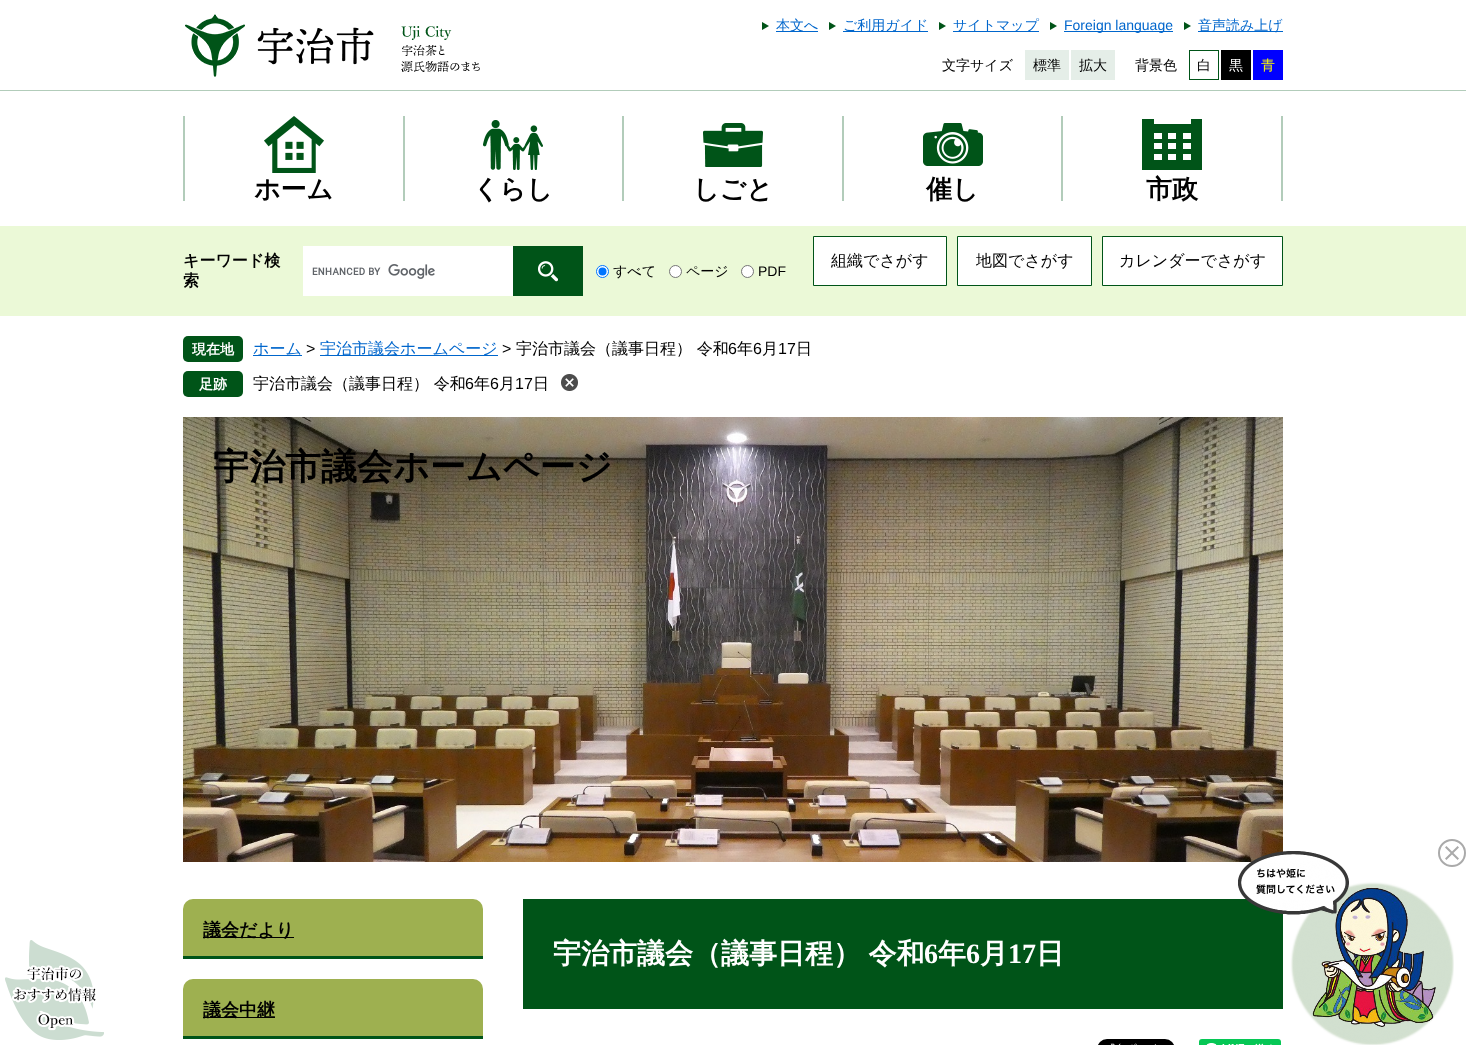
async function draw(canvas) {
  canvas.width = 1466;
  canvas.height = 1045;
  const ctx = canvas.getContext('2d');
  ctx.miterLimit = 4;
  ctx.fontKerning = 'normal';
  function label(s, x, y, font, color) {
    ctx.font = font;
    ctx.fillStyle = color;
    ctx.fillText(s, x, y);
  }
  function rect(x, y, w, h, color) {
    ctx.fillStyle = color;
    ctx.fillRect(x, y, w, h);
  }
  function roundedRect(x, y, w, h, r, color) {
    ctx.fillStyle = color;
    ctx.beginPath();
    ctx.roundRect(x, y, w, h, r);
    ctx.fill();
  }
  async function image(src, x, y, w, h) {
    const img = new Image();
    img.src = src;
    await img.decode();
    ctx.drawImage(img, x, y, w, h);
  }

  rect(0, 0, 1466, 1045, '#fff');
  rect(0, 90, 1466, 1, '#b2ccba');
  await image('assets/img1.png', 185, 14, 295, 63);
  await image('assets/img2.png', 762, 22, 7, 8);
  rect(776, 31, 42, 1, '#06c');
  label('本文へ', 776, 30, '500 14px WenQuanYi Zen Hei', '#06c');
  await image('assets/img2.png', 829, 22, 7, 8);
  rect(843, 31, 85, 1, '#06c');
  label('ご利用ガイド', 843, 30, '500 14px WenQuanYi Zen Hei', '#06c');
  await image('assets/img2.png', 939, 22, 7, 8);
  rect(953, 31, 86, 1, '#06c');
  label('サイトマップ', 953, 30, '500 14px WenQuanYi Zen Hei', '#06c');
  await image('assets/img2.png', 1050, 22, 7, 8);
  rect(1064, 31, 109, 1, '#06c');
  label('Foreign language', 1064, 30, '14px Liberation Sans', '#06c');
  await image('assets/img2.png', 1184, 22, 7, 8);
  rect(1198, 31, 85, 1, '#06c');
  label('音声読み上げ', 1198, 30, '500 14px WenQuanYi Zen Hei', '#06c');
  label('文字サイズ', 942, 70, '500 14px WenQuanYi Zen Hei', '#000');
  rect(1025, 50, 44, 30, '#e5eee8');
  label('標準', 1033, 70, '500 14px WenQuanYi Zen Hei', '#000');
  rect(1071, 50, 44, 30, '#e5eee8');
  label('拡大', 1079, 70, '500 14px WenQuanYi Zen Hei', '#000');
  label('背景色', 1135, 70, '500 14px WenQuanYi Zen Hei', '#000');
  ctx.strokeStyle = '#005418';
  ctx.strokeRect(1189.5, 50.5, 29, 29);
  label('白', 1197, 70, '500 14px WenQuanYi Zen Hei', '#000');
  rect(1221, 50, 30, 30, '#000');
  label('黒', 1229, 70, '500 14px WenQuanYi Zen Hei', '#fff');
  rect(1253, 50, 30, 30, '#00f');
  label('青', 1261, 70, '500 14px WenQuanYi Zen Hei', '#ff0');
  rect(1281, 116, 2, 85, '#b2ccba');
  rect(183, 116, 2, 85, '#b2ccba');
  rect(403, 116, 2, 85, '#b2ccba');
  await image('assets/img3.png', 264, 116, 60, 57);
  label('ホーム', 254, 198, 'bold 26px WenQuanYi Zen Hei', '#000');
  rect(622, 116, 2, 85, '#b2ccba');
  await image('assets/img4.png', 483, 120, 60, 50);
  label('くらし', 473, 198, 'bold 26px WenQuanYi Zen Hei', '#000');
  rect(842, 116, 2, 85, '#b2ccba');
  await image('assets/img5.png', 703, 123, 60, 44);
  label('しごと', 693, 198, 'bold 26px WenQuanYi Zen Hei', '#000');
  rect(1061, 116, 2, 85, '#b2ccba');
  await image('assets/img6.png', 923, 123, 60, 43);
  label('催し', 926, 198, 'bold 26px WenQuanYi Zen Hei', '#000');
  await image('assets/img7.png', 1142, 119, 60, 51);
  label('市政', 1146, 198, 'bold 26px WenQuanYi Zen Hei', '#000');
  rect(0, 226, 1466, 90, '#ebf9d7');
  label('キーワード検', 183, 266, 'bold 16px WenQuanYi Zen Hei', '#000');
  label('索', 183, 286, 'bold 16px WenQuanYi Zen Hei', '#000');
  rect(303, 246, 210, 50, '#fff');
  await image('assets/img8.png', 312, 264, 123, 15);
  rect(513, 246, 70, 50, '#005418');
  await image('assets/img9.png', 538, 261, 20, 21);
  ctx.fillStyle = '#fff';
  ctx.beginPath();
  ctx.arc(602.5, 271.5, 6, 0, 2 * Math.PI);
  ctx.fill();
  ctx.strokeStyle = '#0075ff';
  ctx.stroke();
  ctx.fillStyle = '#0075ff';
  ctx.beginPath();
  ctx.arc(602.5, 271.5, 4, 0, 2 * Math.PI);
  ctx.fill();
  label('すべて', 613, 276, '500 14px WenQuanYi Zen Hei', '#000');
  ctx.fillStyle = '#fff';
  ctx.beginPath();
  ctx.arc(675.5, 271.5, 6, 0, 2 * Math.PI);
  ctx.fill();
  ctx.strokeStyle = '#767676';
  ctx.stroke();
  label('ページ', 686, 276, '500 14px WenQuanYi Zen Hei', '#000');
  ctx.fillStyle = '#fff';
  ctx.beginPath();
  ctx.arc(747.5, 271.5, 6, 0, 2 * Math.PI);
  ctx.fill();
  ctx.stroke();
  label('PDF', 758, 276, '14px Liberation Sans', '#000');
  ctx.fillStyle = '#fff';
  ctx.beginPath();
  ctx.rect(813.5, 236.5, 133, 49);
  ctx.fill();
  ctx.strokeStyle = '#005418';
  ctx.stroke();
  label('組織でさがす', 831, 266, '500 16px WenQuanYi Zen Hei', '#000');
  ctx.fillStyle = '#fff';
  ctx.beginPath();
  ctx.rect(957.5, 236.5, 134, 49);
  ctx.fill();
  ctx.stroke();
  label('地図でさがす', 976, 266, '500 16px WenQuanYi Zen Hei', '#000');
  ctx.fillStyle = '#fff';
  ctx.beginPath();
  ctx.rect(1102.5, 236.5, 180, 49);
  ctx.fill();
  ctx.stroke();
  label('カレンダーでさがす', 1119, 266, '500 16px WenQuanYi Zen Hei', '#000');
  roundedRect(183, 336, 60, 26, 5, '#005418');
  label('現在地', 192, 354, 'bold 14px WenQuanYi Zen Hei', '#fff');
  rect(253, 355, 49, 1, '#06c');
  label('ホーム', 253, 354, '500 16px WenQuanYi Zen Hei', '#06c');
  label('>', 306, 354, '16px Liberation Sans', '#000');
  rect(320, 355, 178, 1, '#06c');
  label('宇治市議会ホームページ', 320, 354, '500 16px WenQuanYi Zen Hei', '#06c');
  label('>', 502, 354, '16px Liberation Sans', '#000');
  label('宇治市議会（議事日程） 令和', 516, 354, '500 16px WenQuanYi Zen Hei', '#000');
  label('6', 728, 354, '16px Liberation Sans', '#000');
  label('年', 737, 354, '500 16px WenQuanYi Zen Hei', '#000');
  label('6', 753, 354, '16px Liberation Sans', '#000');
  label('月', 762, 354, '500 16px WenQuanYi Zen Hei', '#000');
  label('17', 778, 354, '16px Liberation Sans', '#000');
  label('日', 796, 354, '500 16px WenQuanYi Zen Hei', '#000');
  roundedRect(183, 371, 60, 26, 5, '#005418');
  label('足跡', 199, 389, 'bold 14px WenQuanYi Zen Hei', '#fff');
  label('宇治市議会（議事日程） 令和', 253, 389, '500 16px WenQuanYi Zen Hei', '#000');
  label('6', 465, 389, '16px Liberation Sans', '#000');
  label('年', 474, 389, '500 16px WenQuanYi Zen Hei', '#000');
  label('6', 490, 389, '16px Liberation Sans', '#000');
  label('月', 499, 389, '500 16px WenQuanYi Zen Hei', '#000');
  label('17', 515, 389, '16px Liberation Sans', '#000');
  label('日', 533, 389, '500 16px WenQuanYi Zen Hei', '#000');
  await image('assets/img10.png', 561, 374, 17, 17);
  await image('assets/img11.png', 183, 417, 1100, 445);
  label('宇治市議会ホームページ', 213, 479, 'bold 36px WenQuanYi Zen Hei', '#000');
  await image('assets/img12.png', 5, 940, 99, 100);
  await image('assets/img13.png', 12, 965, 84, 39);
  await image('assets/img14.png', 36, 1012, 39, 19);
  ctx.fillStyle = '#9eb050';
  ctx.beginPath();
  ctx.roundRect(183, 899, 300, 60, [10, 10, 0, 0]);
  ctx.fill();
  rect(183, 956, 300, 3, '#005418');
  rect(203, 937, 91, 1, '#000');
  label('議会だより', 203, 936, 'bold 18px WenQuanYi Zen Hei', '#000');
  ctx.fillStyle = '#9eb050';
  ctx.beginPath();
  ctx.roundRect(183, 979, 300, 60, [10, 10, 0, 0]);
  ctx.fill();
  rect(183, 1036, 300, 3, '#005418');
  rect(203, 1017, 72, 1, '#000');
  label('議会中継', 203, 1016, 'bold 18px WenQuanYi Zen Hei', '#000');
  rect(523, 899, 760, 110, '#005418');
  ctx.wordSpacing = '-1px';
  label('宇治市議会（議事日程） 令和', 553, 963, 'bold 28px WenQuanYi Zen Hei', '#fff');
  ctx.wordSpacing = '0px';
  label('6', 924, 963, 'bold 28px Liberation Serif', '#fff');
  label('年', 938, 963, 'bold 28px WenQuanYi Zen Hei', '#fff');
  label('6', 966, 963, 'bold 28px Liberation Serif', '#fff');
  label('月', 980, 963, 'bold 28px WenQuanYi Zen Hei', '#fff');
  label('17', 1008, 963, 'bold 28px Liberation Serif', '#fff');
  label('日', 1036, 963, 'bold 28px WenQuanYi Zen Hei', '#fff');
  await image('assets/img15.png', 1098, 1039, 76, 6);
  await image('assets/img16.png', 1199, 1039, 82, 6);
  await image('assets/img17.png', 1238, 839, 228, 206);
}

draw(document.querySelector('canvas'));
